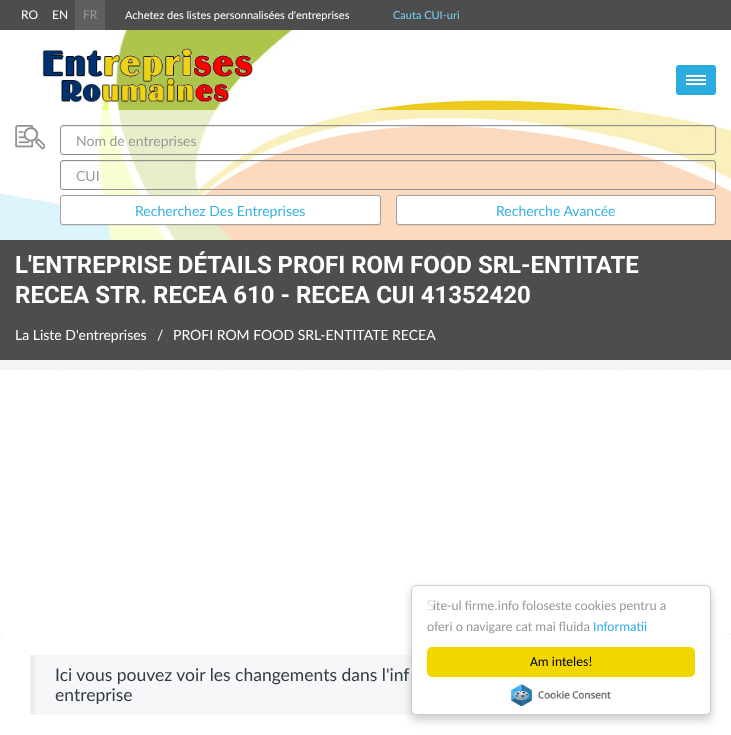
async function draw(canvas) {
  canvas.width = 731;
  canvas.height = 735;
  const ctx = canvas.getContext('2d');
  ctx.miterLimit = 4;
  ctx.fontKerning = 'normal';
  function label(s, x, y, font, color) {
    ctx.font = font;
    ctx.fillStyle = color;
    ctx.fillText(s, x, y);
  }
  function rect(x, y, w, h, color) {
    ctx.fillStyle = color;
    ctx.fillRect(x, y, w, h);
  }
  function roundedRect(x, y, w, h, r, color) {
    ctx.fillStyle = color;
    ctx.beginPath();
    ctx.roundRect(x, y, w, h, r);
    ctx.fill();
  }
  async function image(src, x, y, w, h) {
    const img = new Image();
    img.src = src;
    await img.decode();
    ctx.drawImage(img, x, y, w, h);
  }
  let path;

  rect(0, 0, 731, 735, '#fff');
  await image('assets/img1.png', 0, 360, 731, 275);
  await image('assets/img2.png', 0, 30, 731, 210);
  rect(0, 0, 731, 30, '#4d4d4d');
  label('RO', 21, 19, '12px Lato', '#fff');
  label('EN', 52, 19, '12px Lato', '#fff');
  rect(75, 0, 30, 30, '#5f5f5f');
  label('FR', 83, 19, '12px Lato', '#999');
  label('Achetez des listes personnalisées d\'entreprises', 125, 19, '11px Lato', '#fff');
  label('Cauta CUI-uri', 393, 19, '11px Lato', '#74d4f7');
  await image('assets/img3.png', 42, 48, 211, 55);
  roundedRect(676, 65, 40, 30, 3, '#2aadde');
  rect(686, 75, 20, 2, '#fff');
  rect(686, 79, 20, 2, '#fff');
  rect(686, 83, 20, 2, '#fff');
  rect(0, 110, 731, 130, '#ffffffb3');
  await image('assets/img4.png', 15, 125, 30, 25);
  ctx.fillStyle = '#00000012';
  path = new Path2D('M63 127H713C714 127 715 128 715 129C715 128 715 126 713 126H63C61 126 61 128 61 129C61 128 62 127 63 127Z');
  ctx.fill(path);
  ctx.beginPath();
  ctx.roundRect(60.5, 125.5, 655, 29, 2.5);
  ctx.strokeStyle = '#919191';
  ctx.stroke();
  label('Nom de entreprises', 76, 146, '14px Lato', '#999');
  ctx.fillStyle = '#00000012';
  path = new Path2D('M63 162H713C714 162 715 163 715 164C715 163 715 161 713 161H63C61 161 61 163 61 164C61 163 62 162 63 162Z');
  ctx.fill(path);
  ctx.beginPath();
  ctx.roundRect(60.5, 160.5, 655, 29, 2.5);
  ctx.stroke();
  label('CUI', 76, 181, '14px Lato', '#999');
  ctx.fillStyle = '#00000012';
  ctx.filter = 'blur(0.5px)';
  ctx.beginPath();
  ctx.roundRect(60, 196, 321, 30, 3);
  ctx.fill();
  ctx.filter = 'none';
  ctx.fillStyle = '#fff';
  ctx.beginPath();
  ctx.roundRect(60.5, 195.5, 320, 29, 2.5);
  ctx.fill();
  ctx.strokeStyle = '#a2a1a1';
  ctx.stroke();
  label('Recherchez Des Entreprises', 135, 216, '14px Lato', '#37b2e0');
  ctx.fillStyle = '#00000012';
  ctx.filter = 'blur(0.5px)';
  ctx.beginPath();
  ctx.roundRect(396, 196, 320, 30, 3);
  ctx.fill();
  ctx.filter = 'none';
  ctx.fillStyle = '#fff';
  ctx.beginPath();
  ctx.roundRect(396.5, 195.5, 319, 29, 2.5);
  ctx.fill();
  ctx.stroke();
  label('Recherche Avancée', 496, 216, '14px Lato', '#37b2e0');
  rect(0, 240, 731, 120, '#4d4d4d');
  label('L\'ENTREPRISE DÉTAILS PROFI ROM FOOD SRL-ENTITATE', 15, 273, 'bold 24px Roboto', '#fff');
  label('RECEA STR. RECEA 610 - RECEA CUI 41352420', 15, 303, 'bold 24px Roboto', '#fff');
  label('La Liste D\'entreprises', 15, 340, '14px Lato', '#fff');
  label('/', 157, 340, '14px Lato', '#fff');
  label('PROFI ROM FOOD SRL-ENTITATE RECEA', 173, 340, '14px Lato', '#fff');
  ctx.fillStyle = '#0000001a';
  ctx.filter = 'blur(1.5px)';
  ctx.beginPath();
  ctx.roundRect(0, 371, 731, 265, 3);
  ctx.fill();
  ctx.filter = 'none';
  ctx.fillStyle = '#fff';
  ctx.beginPath();
  ctx.roundRect(0, 370, 731, 265, [0, 0, 3, 3]);
  ctx.fill();
  rect(0, 635, 731, 3, '#fff');
  rect(35, 655, 381, 60, '#f7f7f9');
  rect(30, 655, 5, 60, '#eee');
  label('Ici vous pouvez voir les changements dans l\'inf', 55, 681, '17.5px Lato', '#303c42');
  label('entreprise', 55, 701, '17.5px Lato', '#303c42');
  ctx.fillStyle = '#00000033';
  ctx.filter = 'blur(5px)';
  ctx.beginPath();
  ctx.roundRect(411, 590, 300, 130, 5);
  ctx.fill();
  ctx.filter = 'none';
  ctx.fillStyle = '#fff';
  ctx.beginPath();
  ctx.roundRect(411.5, 585.5, 299, 129, 4.5);
  ctx.fill();
  ctx.strokeStyle = '#ccc';
  ctx.stroke();
  label('S', 427, 610, '100 13.6px Noto Sans', '#999');
  label('ite-ul firme.info foloseste cookies pentru a', 433, 610, '13.6px Carlito', '#999');
  label('oferi o navigare cat mai fluida', 427, 631, '13.6px Carlito', '#999');
  label('Informatii', 593, 631, '13.6px Carlito', '#31a8f0');
  roundedRect(427, 647, 268, 30, 5, '#f1d600');
  label('Am inteles!', 530, 666, '13.6px Carlito', '#000');
  await image('assets/img5.png', 511, 684, 100, 22);
}

draw(document.querySelector('canvas'));
